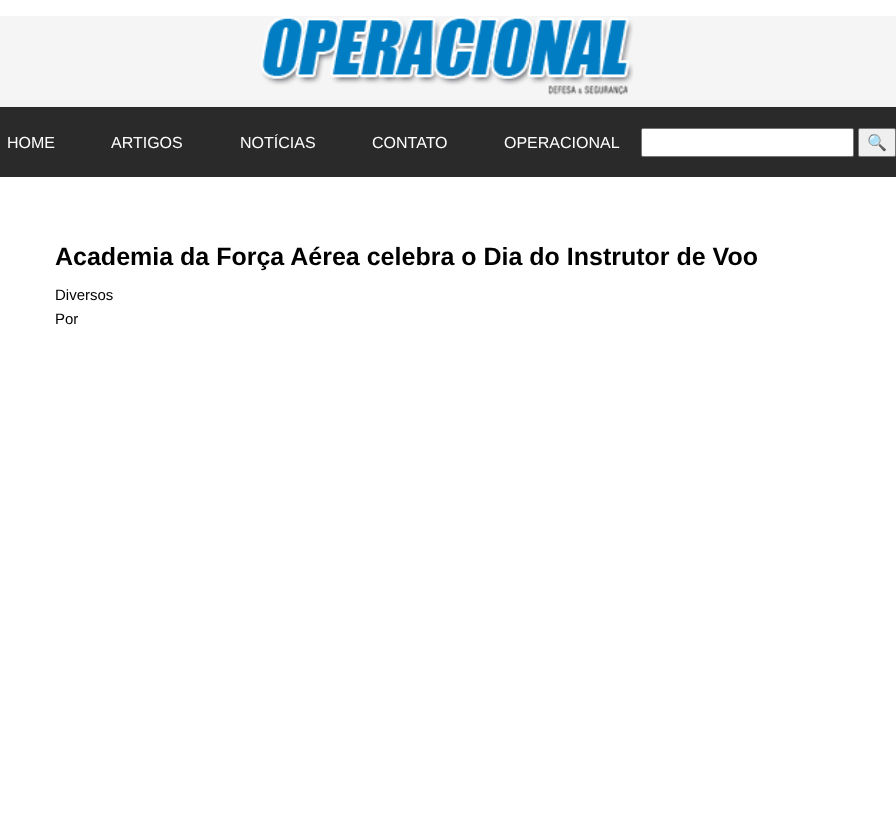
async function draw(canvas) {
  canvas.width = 896;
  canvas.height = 838;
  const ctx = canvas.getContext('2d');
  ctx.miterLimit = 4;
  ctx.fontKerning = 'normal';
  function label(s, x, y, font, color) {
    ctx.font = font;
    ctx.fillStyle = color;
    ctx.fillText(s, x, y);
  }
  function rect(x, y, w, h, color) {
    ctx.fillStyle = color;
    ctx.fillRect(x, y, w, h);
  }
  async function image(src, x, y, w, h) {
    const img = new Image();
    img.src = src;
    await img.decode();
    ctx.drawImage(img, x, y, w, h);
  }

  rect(0, 0, 896, 838, '#fff');
  rect(0, 16, 896, 91, '#f5f5f5');
  await image('assets/img1.png', 260, 16, 374, 79);
  rect(0, 107, 896, 70, '#2a2a2a');
  label('HOME', 7, 148, '16px Liberation Sans', '#fff');
  label('ARTIGOS', 111, 148, '16px Liberation Sans', '#fff');
  label('NOTÍCIAS', 240, 148, '16px Liberation Sans', '#fff');
  label('CONTATO', 372, 148, '16px Liberation Sans', '#fff');
  label('OPERACIONAL', 504, 148, '16px Liberation Sans', '#fff');
  ctx.beginPath();
  ctx.roundRect(641.5, 128.5, 212, 28, 1.5);
  ctx.fill();
  ctx.strokeStyle = '#767676';
  ctx.stroke();
  ctx.fillStyle = '#efefef';
  ctx.beginPath();
  ctx.roundRect(858.5, 128.5, 37, 28, 1.5);
  ctx.fill();
  ctx.stroke();
  label('🔍', 867, 148, '16px Noto Color Emoji', '#000');
  label('Academia da Força Aérea celebra o Dia do Instrutor de Voo', 55, 265, 'bold 25px Liberation Sans', '#000');
  label('Diversos', 55, 300, '15px Liberation Sans', '#000');
  label('Por', 55, 324, '15px Liberation Sans', '#000');
}

draw(document.querySelector('canvas'));
